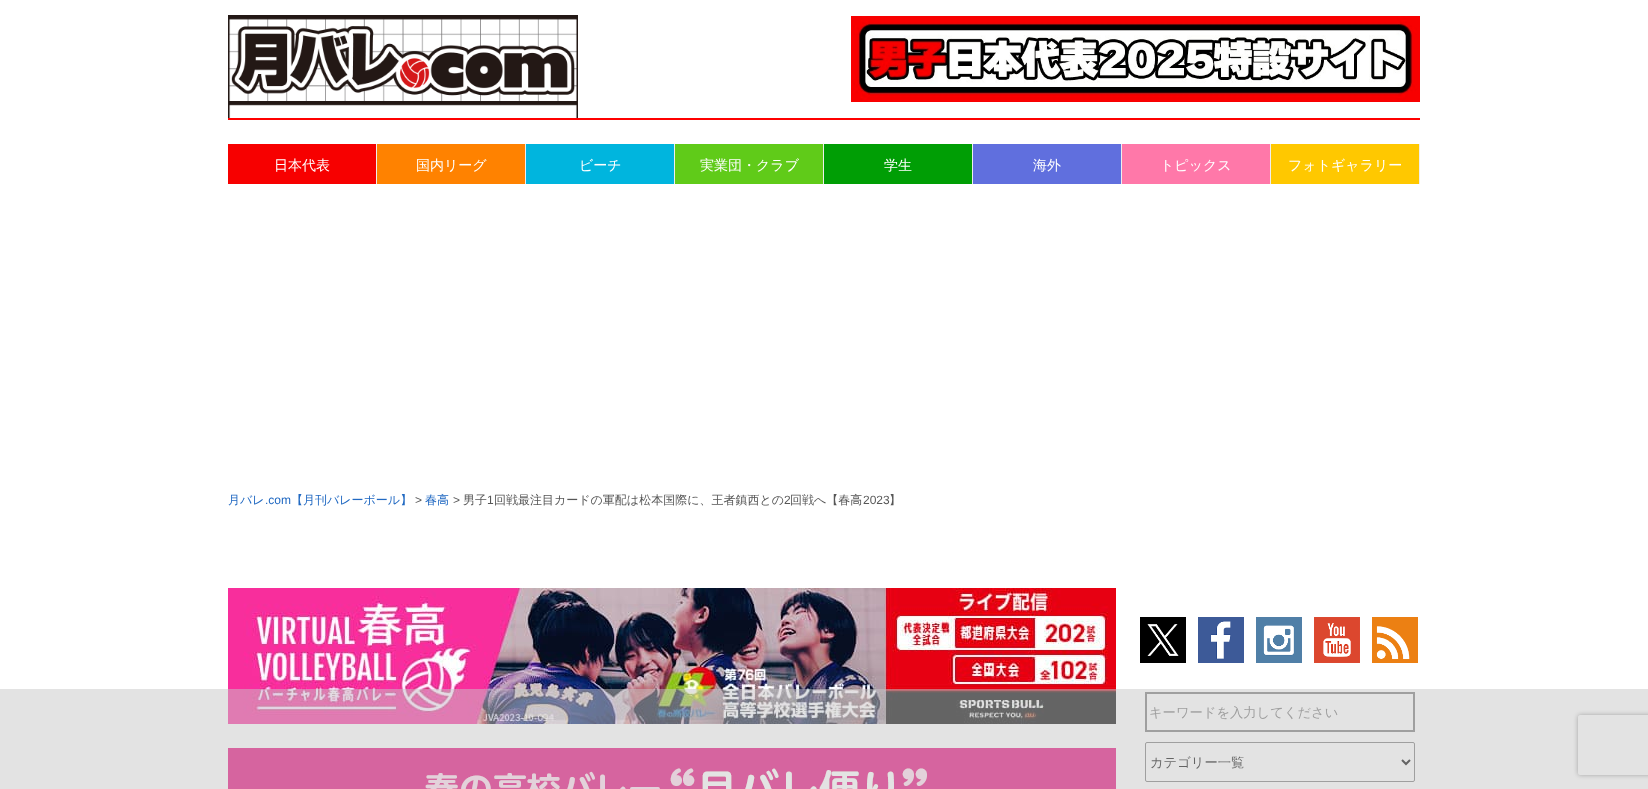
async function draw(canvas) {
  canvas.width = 1648;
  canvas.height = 789;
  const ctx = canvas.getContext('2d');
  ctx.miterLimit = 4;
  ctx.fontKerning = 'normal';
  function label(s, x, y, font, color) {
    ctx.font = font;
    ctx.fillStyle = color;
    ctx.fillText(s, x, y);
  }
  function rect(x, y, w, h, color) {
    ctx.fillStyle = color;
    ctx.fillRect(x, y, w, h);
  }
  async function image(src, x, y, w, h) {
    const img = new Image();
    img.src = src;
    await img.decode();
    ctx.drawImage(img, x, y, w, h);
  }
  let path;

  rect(0, 0, 1648, 789, '#fff');
  rect(228, 118, 1192, 2, '#f00');
  await image('assets/img1.png', 228, 15, 350, 103);
  await image('assets/img2.png', 851, 16, 569, 86);
  rect(228, 144, 148, 40, '#f70000');
  rect(376, 144, 1, 40, '#eee');
  label('日本代表', 274, 170, '500 14px WenQuanYi Zen Hei', '#fff');
  rect(377, 144, 148, 40, '#ff8200');
  rect(525, 144, 1, 40, '#eee');
  label('国内リーグ', 416, 170, '500 14px WenQuanYi Zen Hei', '#fff');
  rect(526, 144, 148, 40, '#00b5de');
  rect(674, 144, 1, 40, '#eee');
  label('ビーチ', 579, 170, '500 14px WenQuanYi Zen Hei', '#fff');
  rect(675, 144, 148, 40, '#60cb19');
  rect(823, 144, 1, 40, '#eee');
  label('実業団・クラブ', 700, 170, '500 14px WenQuanYi Zen Hei', '#fff');
  rect(824, 144, 148, 40, '#009e05');
  rect(972, 144, 1, 40, '#eee');
  label('学生', 884, 170, '500 14px WenQuanYi Zen Hei', '#fff');
  rect(973, 144, 148, 40, '#606fde');
  rect(1121, 144, 1, 40, '#eee');
  label('海外', 1033, 170, '500 14px WenQuanYi Zen Hei', '#fff');
  rect(1122, 144, 148, 40, '#ff78a9');
  rect(1270, 144, 1, 40, '#eee');
  label('トピックス', 1160, 170, '500 14px WenQuanYi Zen Hei', '#fff');
  rect(1271, 144, 148, 40, '#ffc800');
  rect(1419, 144, 1, 40, '#eee');
  label('フォトギャラリー', 1288, 170, '500 14px WenQuanYi Zen Hei', '#fff');
  label('月バレ', 228, 504, '500 12px WenQuanYi Zen Hei', '#2169c2');
  label('.com', 265, 504, '12px Liberation Sans', '#2169c2');
  label('【月刊バレーボール】', 291, 504, '500 12px WenQuanYi Zen Hei', '#2169c2');
  label('>', 415, 504, '12px Liberation Sans', '#575757');
  label('春高', 425, 504, '500 12px WenQuanYi Zen Hei', '#2169c2');
  label('>', 453, 504, '12px Liberation Sans', '#575757');
  label('男子', 463, 504, '500 12px WenQuanYi Zen Hei', '#575757');
  label('1', 487, 504, '12px Liberation Sans', '#575757');
  label('回戦最注目カードの軍配は松本国際に、王者鎮西との', 494, 504, '500 12px WenQuanYi Zen Hei', '#575757');
  label('2', 784, 504, '12px Liberation Sans', '#575757');
  label('回戦へ【春高', 790, 504, '500 12px WenQuanYi Zen Hei', '#575757');
  label('2023', 863, 504, '12px Liberation Sans', '#575757');
  label('】', 889, 504, '500 12px WenQuanYi Zen Hei', '#575757');
  await image('assets/img3.png', 228, 588, 888, 136);
  await image('assets/img4.png', 228, 748, 888, 41);
  await image('assets/img5.png', 1140, 617, 46, 46);
  await image('assets/img6.png', 1198, 617, 46, 46);
  await image('assets/img7.png', 1256, 617, 46, 46);
  await image('assets/img8.png', 1314, 617, 46, 46);
  await image('assets/img9.png', 1372, 617, 46, 46);
  ctx.strokeStyle = '#767676';
  ctx.lineWidth = 2;
  ctx.strokeRect(1146, 693, 268, 38);
  label('キーワードを入力してください', 1149, 717, '500 13.3px WenQuanYi Zen Hei', '#757575');
  ctx.beginPath();
  ctx.roundRect(1145.5, 742.5, 269, 39, 1.5);
  ctx.lineWidth = 1;
  ctx.stroke();
  path = new Path2D('M1402 760L1406 764L1410 760');
  ctx.strokeStyle = '#000';
  ctx.lineWidth = 2;
  ctx.stroke(path);
  label('カテゴリー一覧', 1150, 767, '500 13.3px WenQuanYi Zen Hei', '#000');
  ctx.save();
  path = new Path2D('M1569 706H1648V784H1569ZM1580 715H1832C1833 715 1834 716 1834 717V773C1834 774 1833 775 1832 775H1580C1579 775 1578 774 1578 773V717C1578 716 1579 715 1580 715Z');
  ctx.clip(path, 'evenodd');
  ctx.fillStyle = '#808080';
  ctx.filter = 'blur(2.5px)';
  ctx.beginPath();
  ctx.roundRect(1578, 715, 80, 60, 2);
  ctx.fill();
  ctx.filter = 'none';
  ctx.restore();
  rect(0, 689, 1648, 100, '#c8c8c880');
}

draw(document.querySelector('canvas'));
